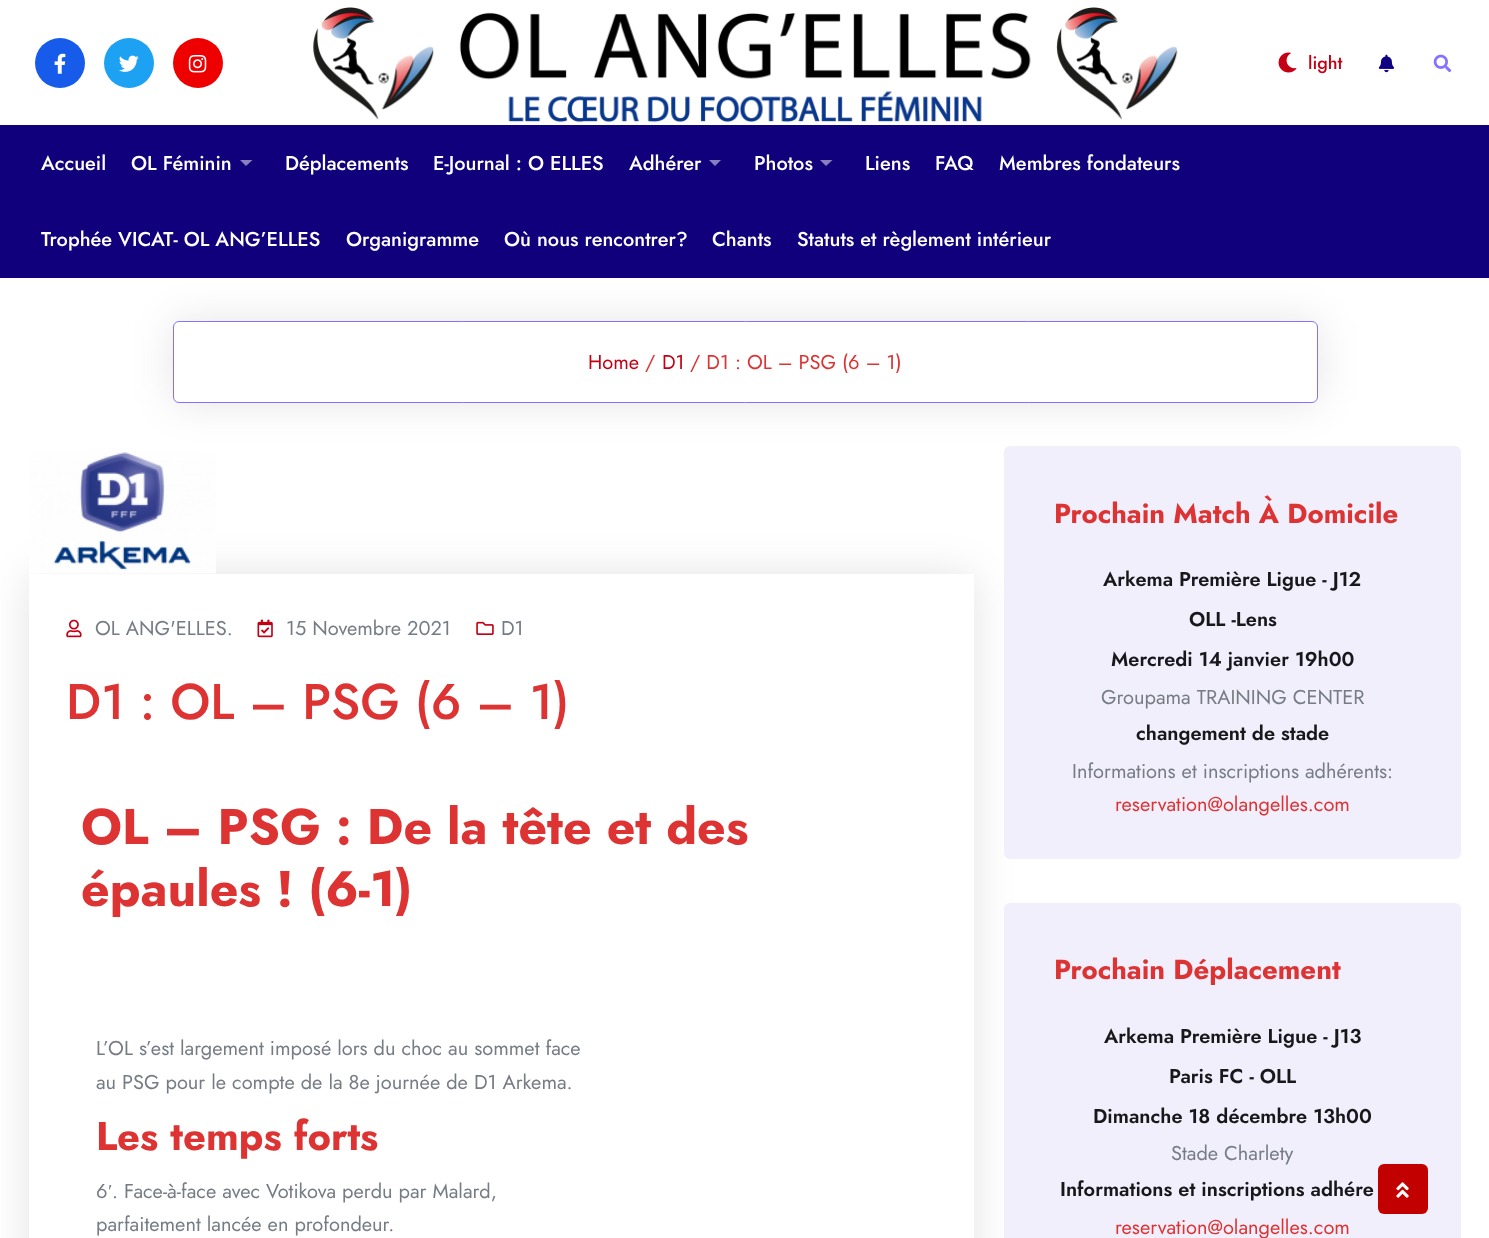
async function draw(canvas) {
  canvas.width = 1489;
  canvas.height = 1238;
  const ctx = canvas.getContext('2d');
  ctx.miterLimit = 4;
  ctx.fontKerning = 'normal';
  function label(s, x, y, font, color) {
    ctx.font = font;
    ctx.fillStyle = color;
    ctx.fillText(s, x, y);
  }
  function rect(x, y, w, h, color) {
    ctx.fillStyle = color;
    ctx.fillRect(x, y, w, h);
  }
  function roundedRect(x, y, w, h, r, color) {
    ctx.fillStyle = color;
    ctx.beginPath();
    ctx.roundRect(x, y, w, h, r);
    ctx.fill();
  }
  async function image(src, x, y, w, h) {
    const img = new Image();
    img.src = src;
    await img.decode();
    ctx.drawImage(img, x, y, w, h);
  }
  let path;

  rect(0, 0, 1489, 1238, '#fff');
  await image('assets/img1.png', 313, 7, 865, 116);
  ctx.fillStyle = '#175beb';
  ctx.beginPath();
  ctx.arc(60, 63, 25, 0, 2 * Math.PI);
  ctx.fill();
  await image('assets/img2.png', 54, 53, 12, 21);
  ctx.fillStyle = '#1da1f2';
  ctx.beginPath();
  ctx.arc(129, 63, 25, 0, 2 * Math.PI);
  ctx.fill();
  await image('assets/img3.png', 119, 55, 20, 17);
  ctx.fillStyle = '#ef0000';
  ctx.beginPath();
  ctx.arc(198, 63, 25, 0, 2 * Math.PI);
  ctx.fill();
  await image('assets/img4.png', 188, 55, 19, 18);
  await image('assets/img5.png', 1278, 52, 19, 21);
  label('light', 1308, 69, '500 18px Jost', '#c40015');
  await image('assets/img6.png', 1378, 54, 17, 19);
  await image('assets/img7.png', 1433, 54, 19, 19);
  ctx.save();
  path = new Path2D('M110 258H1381V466H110ZM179 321H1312C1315.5 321 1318 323.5 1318 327V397C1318 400.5 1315.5 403 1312 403H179C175.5 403 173 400.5 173 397V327C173 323.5 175.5 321 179 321Z');
  ctx.clip(path, 'evenodd');
  ctx.fillStyle = '#0000001a';
  ctx.filter = 'blur(20.5px)';
  ctx.beginPath();
  ctx.roundRect(173, 321, 1145, 82, 6);
  ctx.fill();
  ctx.filter = 'none';
  ctx.restore();
  rect(0, 125, 1489, 153, '#10007b');
  label('Accueil', 41, 170, '500 20px Jost', '#fff');
  label('OL Féminin', 131, 170, '500 20px Jost', '#fff');
  ctx.fillStyle = '#8880bd';
  path = new Path2D('M240 160H252.5L246 166Z');
  ctx.fill(path);
  label('Déplacements', 285, 170, '500 20px Jost', '#fff');
  label('E-Journal : O ELLES', 433, 170, '500 20px Jost', '#fff');
  label('Adhérer', 629, 170, '500 20px Jost', '#fff');
  ctx.fillStyle = '#8880bd';
  path = new Path2D('M709 160H721L715 166Z');
  ctx.fill(path);
  label('Photos', 754, 170, '500 20px Jost', '#fff');
  ctx.fillStyle = '#8880bd';
  path = new Path2D('M820 160H832.5L826 166Z');
  ctx.fill(path);
  label('Liens', 865, 170, '500 20px Jost', '#fff');
  label('FAQ', 935, 170, '500 20px Jost', '#fff');
  label('Membres fondateurs', 999, 170, '500 20px Jost', '#fff');
  label('Trophée VICAT- OL ANG’ELLES', 41, 246, '500 20px Jost', '#fff');
  label('Organigramme', 346, 246, '500 20px Jost', '#fff');
  label('Où nous rencontrer?', 504, 246, '500 20px Jost', '#fff');
  label('Chants', 712, 246, '500 20px Jost', '#fff');
  label('Statuts et règlement intérieur', 797, 246, '500 20px Jost', '#fff');
  ctx.beginPath();
  ctx.roundRect(173.5, 321.5, 1144, 81, 5.5);
  ctx.strokeStyle = '#8571ff';
  ctx.stroke();
  label('Home', 588, 369, '20px Jost', '#c40015');
  label('/', 645, 369, '20px Jost', '#d33');
  label('D1', 662, 369, '20px Jost', '#c40015');
  label('/ D1 : OL – PSG (6 – 1)', 690, 369, '20px Jost', '#d33');
  ctx.save();
  path = new Path2D('M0 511H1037V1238H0ZM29 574H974V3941C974 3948 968 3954 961 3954H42C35 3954 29 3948 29 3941Z');
  ctx.clip(path, 'evenodd');
  ctx.fillStyle = '#0000001c';
  ctx.filter = 'blur(20.5px)';
  ctx.beginPath();
  ctx.roundRect(29, 574, 945, 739, 13);
  ctx.fill();
  ctx.filter = 'none';
  ctx.restore();
  await image('assets/img8.png', 29, 452, 187, 122);
  await image('assets/img9.png', 66, 619, 16, 19);
  label('OL ANG\'ELLES.', 95, 635, '20px Jost', '#767c84');
  await image('assets/img10.png', 257, 619, 16, 19);
  label('15 Novembre 2021', 286, 635, '20px Jost', '#767c84');
  await image('assets/img11.png', 476, 621, 18, 14);
  label('D1', 501, 635, '20px Jost', '#767c84');
  label('D1 : OL – PSG (6 – 1)', 66, 719, '500 50px Jost', '#d33');
  label('OL – PSG : De la tête et des', 81, 844, 'bold 50px Jost', '#d33');
  label('épaules ! (6-1)', 81, 906, 'bold 50px Jost', '#d33');
  label('L’OL s’est largement imposé lors du choc au sommet face', 96, 1055, '20px Jost', '#767c84');
  label('au PSG pour le compte de la 8e journée de D1 Arkema.', 96, 1089, '20px Jost', '#767c84');
  label('Les temps forts', 96, 1150, 'bold 40px Jost', '#d33');
  label('6', 96, 1198, '20px Jost', '#767c84');
  label('′', 108, 1198, '20px Liberation Serif', '#767c84');
  label('. Face-à-face avec Votikova perdu par Malard,', 112, 1198, '20px Jost', '#767c84');
  label('parfaitement lancée en profondeur.', 96, 1231, '20px Jost', '#767c84');
  roundedRect(1004, 446, 457, 413, 6, '#f1effc');
  label('Prochain Match À Domicile', 1054, 523, 'bold 27.5px Jost', '#d33');
  label('Arkema Première Ligue - J12', 1103, 586, '600 20px Jost', '#18181b');
  label('OLL -Lens', 1189, 626, '600 20px Jost', '#18181b');
  label('Mercredi 14 janvier 19h00', 1111, 666, '600 20px Jost', '#18181b');
  label('Groupama TRAINING CENTER', 1101, 704, '20px Jost', '#767c84');
  label('changement de stade', 1136, 740, '600 20px Jost', '#18181b');
  label('Informations et inscriptions adhérents:', 1072, 778, '20px Jost', '#767c84');
  label('reservation@olangelles.com', 1115, 811, '20px Jost', '#d33');
  roundedRect(1004, 903, 457, 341, 6, '#f1effc');
  label('Prochain Déplacement', 1054, 979, 'bold 27.5px Jost', '#d33');
  label('Arkema Première Ligue - J13', 1104, 1043, '600 20px Jost', '#18181b');
  label('Paris FC - OLL', 1169, 1083, '600 20px Jost', '#18181b');
  label('Dimanche 18 décembre 13h00', 1093, 1123, '600 20px Jost', '#18181b');
  label('Stade Charlety', 1171, 1160, '20px Jost', '#767c84');
  label('Informations et inscriptions adhére', 1060, 1196, '600 20px Jost', '#18181b');
  label('reservation@olangelles.com', 1115, 1234, '20px Jost', '#d33');
  roundedRect(1378, 1164, 50, 50, 6, '#c20000');
  await image('assets/img12.png', 1396, 1182, 13, 16);
}

draw(document.querySelector('canvas'));
